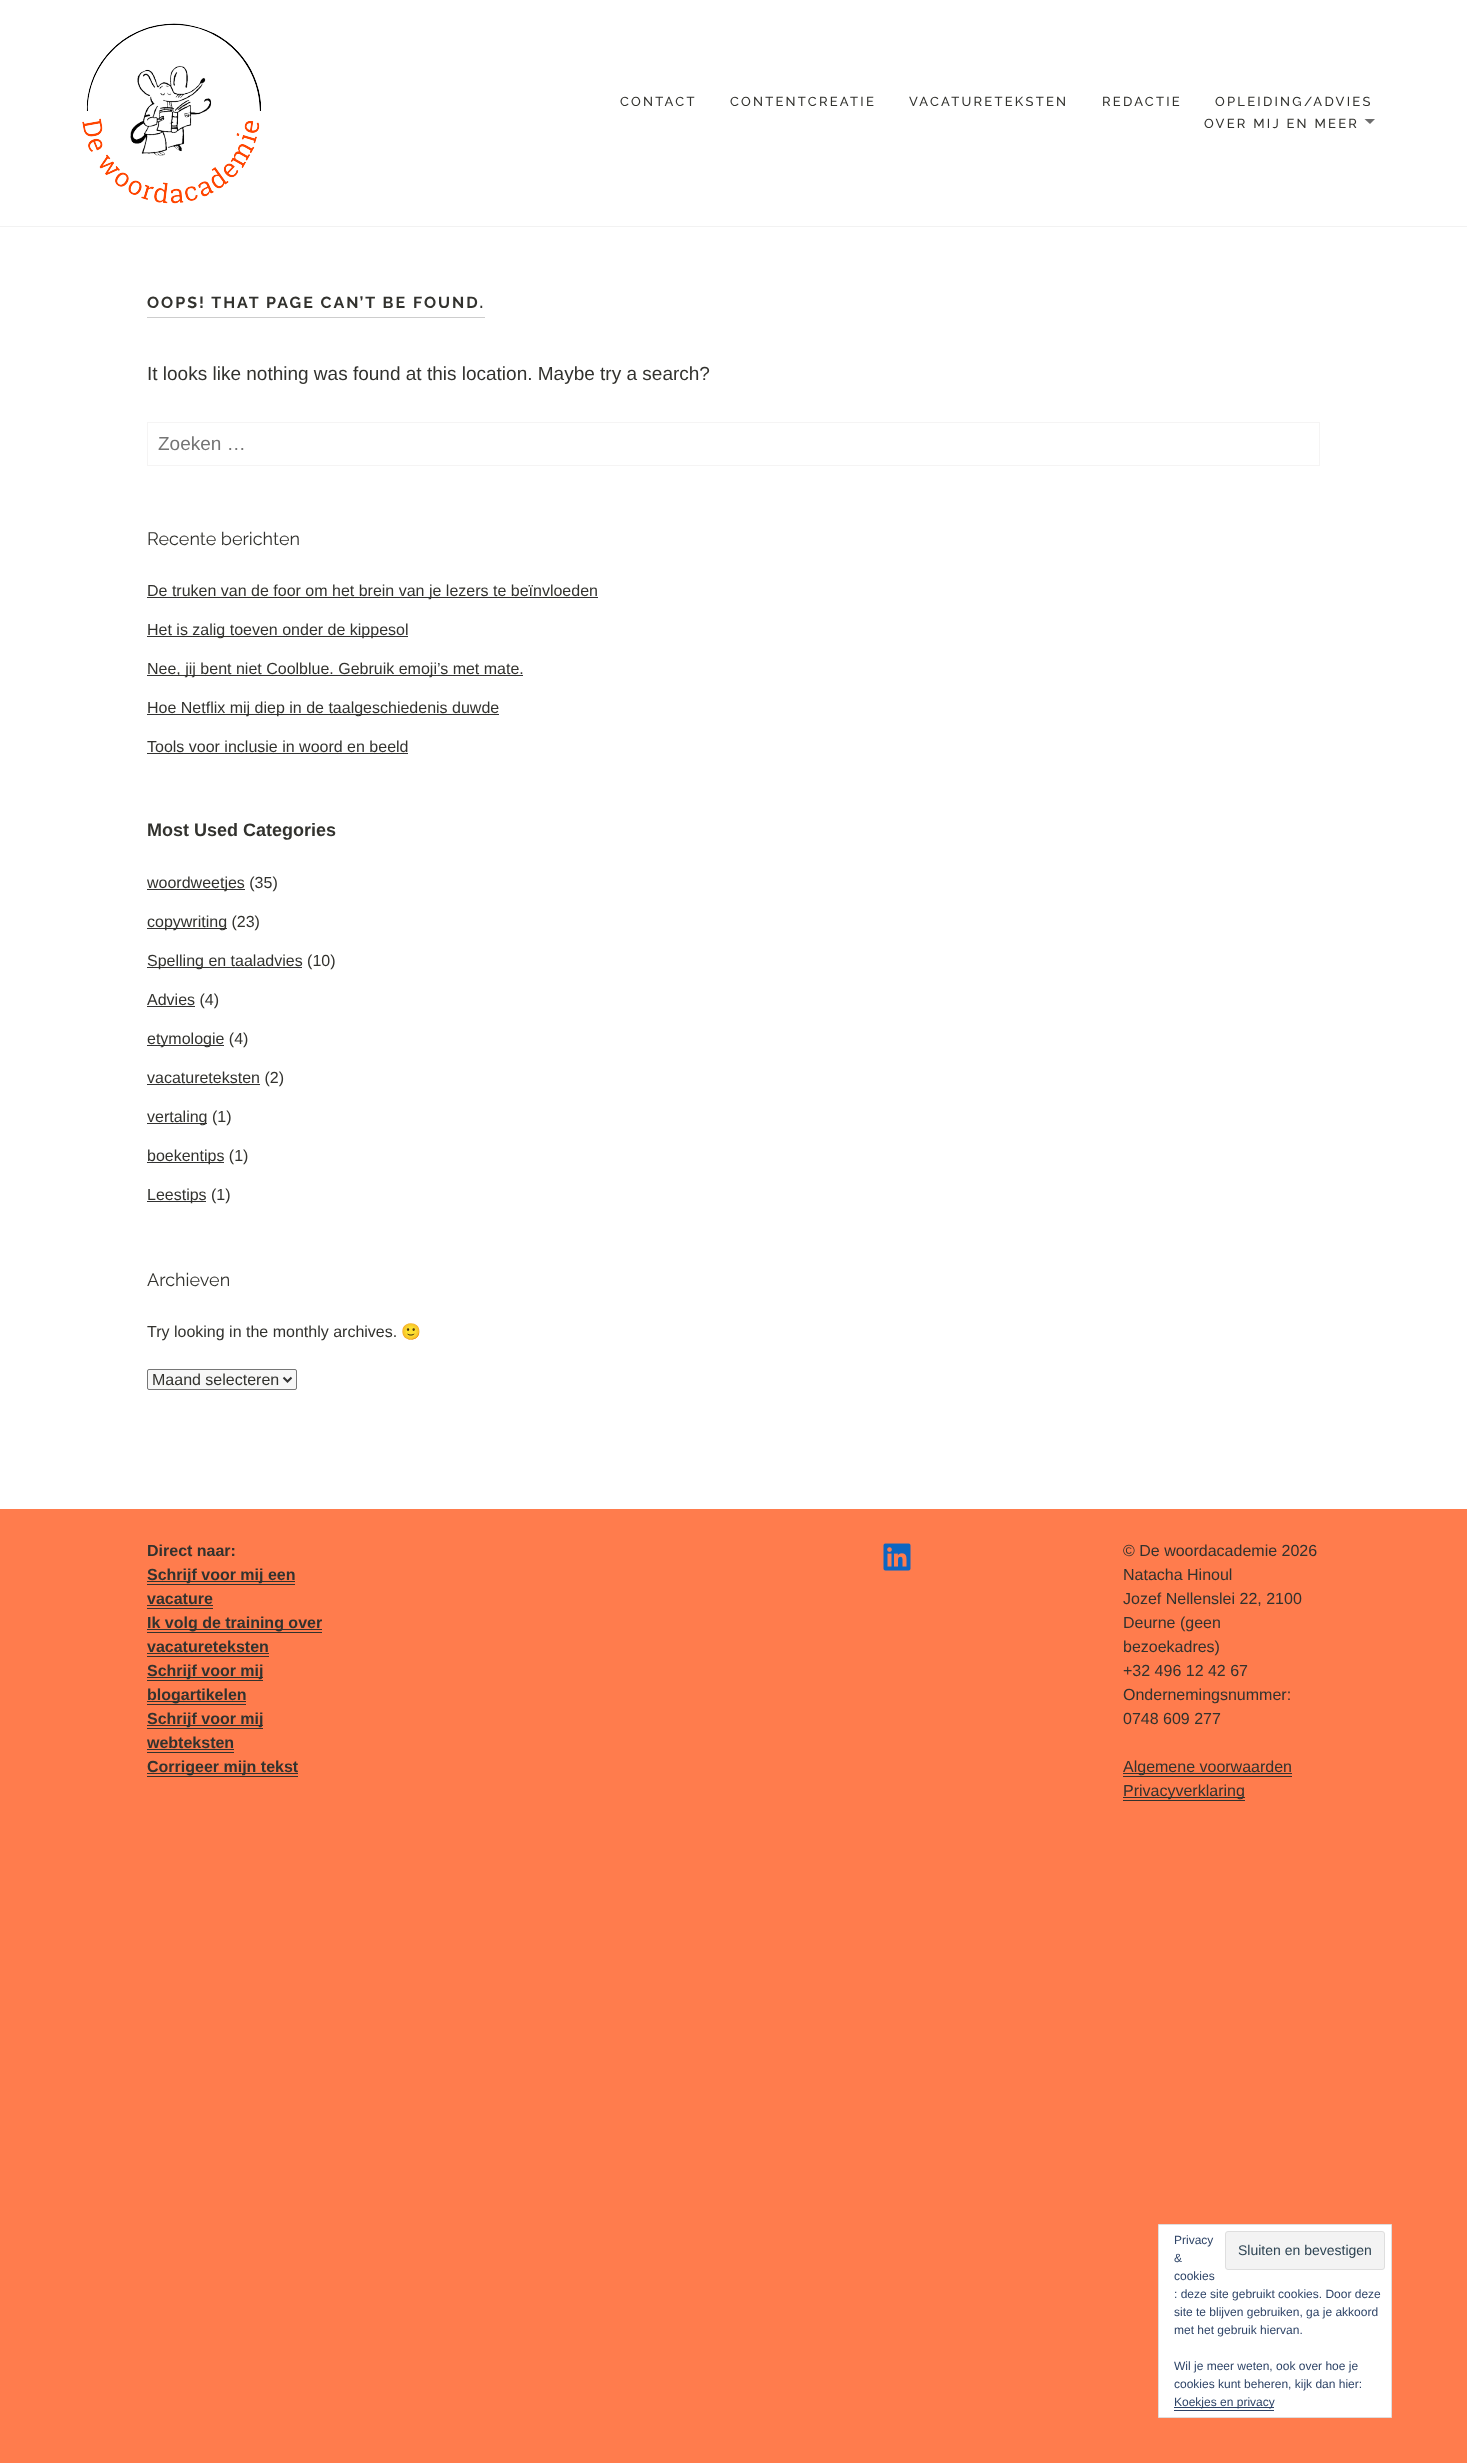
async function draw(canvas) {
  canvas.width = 1467;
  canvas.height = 2463;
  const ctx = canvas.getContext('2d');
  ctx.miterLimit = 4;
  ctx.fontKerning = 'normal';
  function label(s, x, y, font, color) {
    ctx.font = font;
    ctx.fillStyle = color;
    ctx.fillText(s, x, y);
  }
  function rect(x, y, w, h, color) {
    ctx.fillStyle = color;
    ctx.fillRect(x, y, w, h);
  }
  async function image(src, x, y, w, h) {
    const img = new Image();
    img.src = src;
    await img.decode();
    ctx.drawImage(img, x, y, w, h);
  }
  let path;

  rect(0, 0, 1467, 2463, '#fff');
  rect(0, 226, 1467, 1, '#f2f2f2');
  await image('assets/img1.png', 82, 23, 179, 181);
  ctx.letterSpacing = '2.25px';
  label('CONTACT', 620, 106, '500 13px Raleway', '#32322e');
  label('CONTENTCREATIE', 730, 106, '500 13px Raleway', '#32322e');
  label('VACATURETEKSTEN', 909, 106, '500 13px Raleway', '#32322e');
  label('REDACTIE', 1102, 106, '500 13px Raleway', '#32322e');
  label('OPLEIDING/ADVIES', 1215, 106, '500 13px Raleway', '#32322e');
  label('OVER MIJ EN MEER', 1204, 128, '500 13px Raleway', '#32322e');
  ctx.fillStyle = '#6d6d6d';
  path = new Path2D('M1364.5 119H1375L1370 124Z');
  ctx.fill(path);
  rect(147, 317, 338, 1, '#cdcdcd');
  ctx.letterSpacing = '2px';
  label('OOPS! THAT PAGE CAN’T BE FOUND.', 147, 308, 'bold 16px Raleway', '#32322e');
  ctx.letterSpacing = '0px';
  label('It looks like nothing was found at this location. Maybe try a search?', 147, 380, '19px Liberation Sans', '#32322e');
  ctx.strokeStyle = '#f5f4f4';
  ctx.strokeRect(147.5, 422.5, 1172, 43);
  label('Zoeken …', 158, 450, '19px Liberation Sans', '#757575');
  label('Recente berichten', 147, 545, '18px Raleway', '#32322e');
  rect(147, 597, 451, 1, '#333');
  label('De truken van de foor om het brein van je lezers te beïnvloeden', 147, 596, '16px Liberation Sans', '#32322e');
  rect(147, 636, 261, 1, '#333');
  label('Het is zalig toeven onder de kippesol', 147, 635, '16px Liberation Sans', '#32322e');
  rect(147, 675, 376, 1, '#333');
  label('Nee, jij bent niet Coolblue. Gebruik emoji’s met mate.', 147, 674, '16px Liberation Sans', '#32322e');
  rect(147, 714, 352, 1, '#333');
  label('Hoe Netflix mij diep in de taalgeschiedenis duwde', 147, 713, '16px Liberation Sans', '#32322e');
  label('Tools voor inclusie in woord en beeld', 147, 752, '16px Liberation Sans', '#32322e');
  rect(147, 753, 261, 1, '#333');
  label('Most Used Categories', 147, 836, 'bold 18px Liberation Sans', '#32322e');
  rect(147, 889, 98, 1, '#333');
  label('woordweetjes (35)', 147, 888, '16px Liberation Sans', '#32322e');
  rect(147, 928, 80, 1, '#333');
  label('copywriting (23)', 147, 927, '16px Liberation Sans', '#32322e');
  rect(147, 967, 155, 1, '#333');
  label('Spelling en taaladvies (10)', 147, 966, '16px Liberation Sans', '#32322e');
  rect(147, 1006, 48, 1, '#333');
  label('Advies (4)', 147, 1005, '16px Liberation Sans', '#32322e');
  rect(147, 1045, 77, 1, '#333');
  label('etymologie (4)', 147, 1044, '16px Liberation Sans', '#32322e');
  rect(147, 1084, 113, 1, '#333');
  label('vacatureteksten (2)', 147, 1083, '16px Liberation Sans', '#32322e');
  rect(147, 1123, 60, 1, '#333');
  label('vertaling (1)', 147, 1122, '16px Liberation Sans', '#32322e');
  rect(147, 1162, 77, 1, '#333');
  label('boekentips (1)', 147, 1161, '16px Liberation Sans', '#32322e');
  rect(147, 1201, 59, 1, '#333');
  label('Leestips (1)', 147, 1200, '16px Liberation Sans', '#32322e');
  label('Archieven', 147, 1286, '18px Raleway', '#32322e');
  label('Try looking in the monthly archives.', 147, 1337, '16px Liberation Sans', '#32322e');
  label('🙂', 401, 1337, '16px Noto Color Emoji', '#32322e');
  ctx.fillStyle = '#f7f7f7';
  ctx.beginPath();
  ctx.roundRect(147.5, 1369.5, 149, 20, 1.5);
  ctx.fill();
  ctx.strokeStyle = '#767676';
  ctx.stroke();
  path = new Path2D('M283.5 1377.5L287.5 1381.5L291.5 1377.5');
  ctx.strokeStyle = '#333';
  ctx.lineWidth = 2;
  ctx.stroke(path);
  label('Maand selecteren', 152, 1385, '16px Liberation Sans', '#32322e');
  rect(0, 1509, 1467, 954, '#ff7c4d');
  label('Direct naar:', 147, 1556, 'bold 16px Liberation Sans', '#32322e');
  rect(147, 1581, 148, 1, '#32322e');
  label('Schrijf voor mij een', 147, 1580, 'bold 16px Liberation Sans', '#32322e');
  rect(147, 1584, 148, 1, '#32322e');
  label('vacature', 147, 1604, 'bold 16px Liberation Sans', '#32322e');
  rect(147, 1608, 66, 1, '#32322e');
  rect(147, 1605, 66, 1, '#32322e');
  rect(147, 1629, 175, 1, '#32322e');
  label('Ik volg de training over', 147, 1628, 'bold 16px Liberation Sans', '#32322e');
  rect(147, 1632, 175, 1, '#32322e');
  label('vacatureteksten', 147, 1652, 'bold 16px Liberation Sans', '#32322e');
  rect(147, 1656, 122, 1, '#32322e');
  rect(147, 1653, 122, 1, '#32322e');
  rect(147, 1677, 116, 1, '#32322e');
  label('Schrijf voor mij', 147, 1676, 'bold 16px Liberation Sans', '#32322e');
  rect(147, 1680, 116, 1, '#32322e');
  rect(147, 1701, 99, 1, '#32322e');
  label('blogartikelen', 147, 1700, 'bold 16px Liberation Sans', '#32322e');
  rect(147, 1704, 99, 1, '#32322e');
  rect(147, 1725, 116, 1, '#32322e');
  label('Schrijf voor mij', 147, 1724, 'bold 16px Liberation Sans', '#32322e');
  rect(147, 1728, 116, 1, '#32322e');
  label('webteksten', 147, 1748, 'bold 16px Liberation Sans', '#32322e');
  rect(147, 1752, 87, 1, '#32322e');
  rect(147, 1749, 87, 1, '#32322e');
  rect(147, 1773, 151, 1, '#32322e');
  label('Corrigeer mijn tekst', 147, 1772, 'bold 16px Liberation Sans', '#32322e');
  rect(147, 1776, 151, 1, '#32322e');
  await image('assets/img2.png', 883, 1543, 28, 28);
  label('© De woordacademie 2026', 1123, 1556, '16px Liberation Sans', '#32322e');
  label('Natacha Hinoul', 1123, 1580, '16px Liberation Sans', '#32322e');
  label('Jozef Nellenslei 22, 2100', 1123, 1604, '16px Liberation Sans', '#32322e');
  label('Deurne (geen', 1123, 1628, '16px Liberation Sans', '#32322e');
  label('bezoekadres)', 1123, 1652, '16px Liberation Sans', '#32322e');
  label('+32 496 12 42 67', 1123, 1676, '16px Liberation Sans', '#32322e');
  label('Ondernemingsnummer:', 1123, 1700, '16px Liberation Sans', '#32322e');
  label('0748 609 277', 1123, 1724, '16px Liberation Sans', '#32322e');
  rect(1123, 1773, 169, 1, '#32322e');
  label('Algemene voorwaarden', 1123, 1772, '16px Liberation Sans', '#32322e');
  rect(1123, 1776, 169, 1, '#32322e');
  rect(1123, 1797, 122, 1, '#32322e');
  label('Privacyverklaring', 1123, 1796, '16px Liberation Sans', '#32322e');
  rect(1123, 1800, 122, 1, '#32322e');
  ctx.fillStyle = '#fff';
  ctx.beginPath();
  ctx.rect(1158.5, 2224.5, 233, 193);
  ctx.fill();
  ctx.strokeStyle = '#dedede';
  ctx.lineWidth = 1;
  ctx.stroke();
  label('Privacy', 1174, 2244, '12px Liberation Sans', '#2e4467');
  label('&', 1174, 2262, '12px Liberation Sans', '#2e4467');
  ctx.fillStyle = '#f3f3f3';
  ctx.beginPath();
  ctx.roundRect(1225.5, 2231.5, 159, 38, 2.5);
  ctx.fill();
  ctx.stroke();
  label('Sluiten en bevestigen', 1238, 2255, '14px Liberation Sans', '#2e4453');
  label('cookies', 1174, 2280, '12px Liberation Sans', '#2e4467');
  label(': deze site gebruikt cookies. Door deze', 1174, 2298, '12px Liberation Sans', '#2e4467');
  label('site te blijven gebruiken, ga je akkoord', 1174, 2316, '12px Liberation Sans', '#2e4467');
  label('met het gebruik hiervan.', 1174, 2334, '12px Liberation Sans', '#2e4467');
  label('Wil je meer weten, ook over hoe je', 1174, 2370, '12px Liberation Sans', '#2e4467');
  label('cookies kunt beheren, kijk dan hier:', 1174, 2388, '12px Liberation Sans', '#2e4467');
  rect(1174, 2407, 100, 1, '#2e4467');
  label('Koekjes en privacy', 1174, 2406, '12px Liberation Sans', '#2e4467');
  rect(1174, 2410, 100, 1, '#2e4467');
}

draw(document.querySelector('canvas'));
